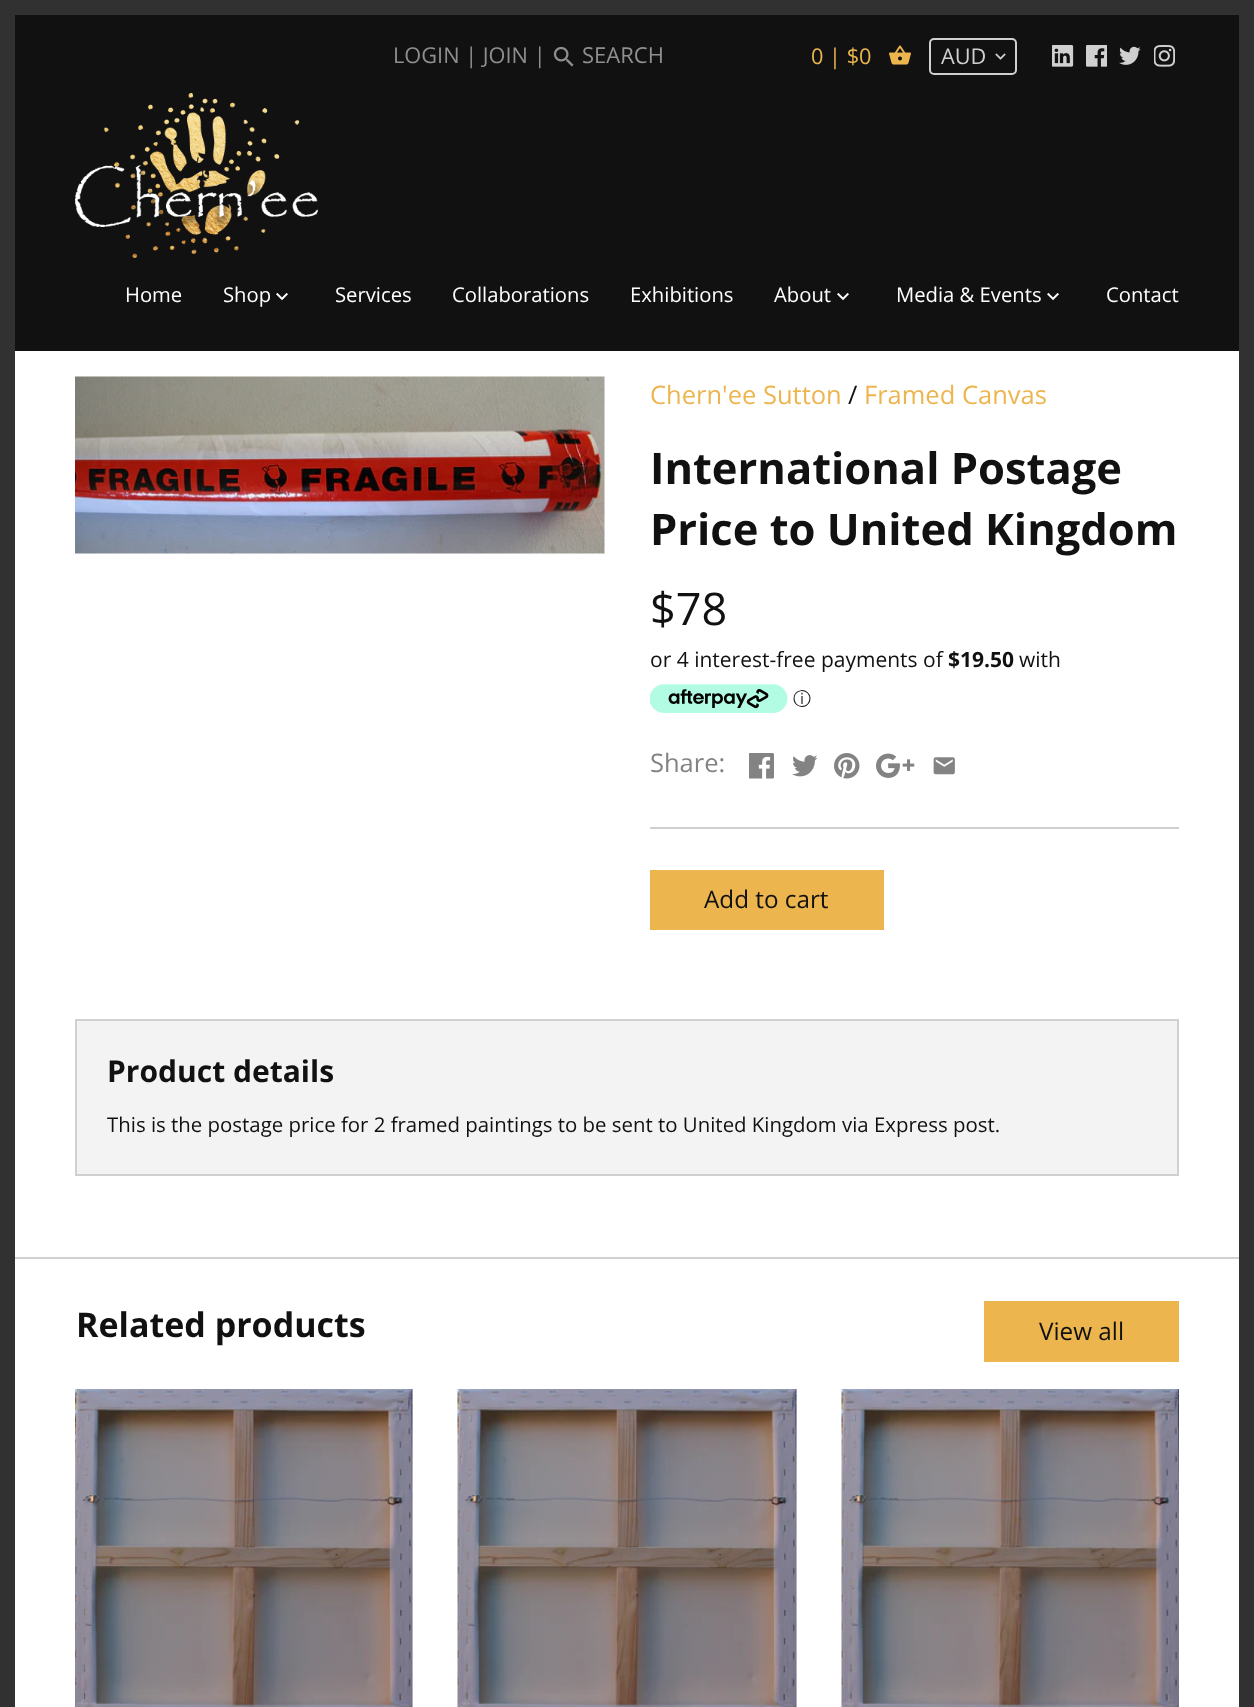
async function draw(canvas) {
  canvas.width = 1254;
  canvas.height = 1707;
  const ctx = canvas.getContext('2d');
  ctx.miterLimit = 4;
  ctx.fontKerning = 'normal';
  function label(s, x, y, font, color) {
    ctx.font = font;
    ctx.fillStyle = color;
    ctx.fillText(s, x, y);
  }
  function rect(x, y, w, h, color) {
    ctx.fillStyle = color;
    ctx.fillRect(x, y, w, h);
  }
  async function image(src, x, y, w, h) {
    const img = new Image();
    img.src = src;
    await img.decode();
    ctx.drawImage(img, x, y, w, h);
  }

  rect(0, 0, 1254, 1707, '#fff');
  ctx.strokeStyle = '#313131';
  ctx.lineWidth = 15;
  ctx.strokeRect(7.5, 7.5, 1239, 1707);
  rect(15, 15, 1224, 336, '#111');
  label('LOGIN | JOIN |', 393, 63, '21.75px Open Sans', '#8f8f8f');
  await image('assets/img1.png', 553, 46, 21, 21);
  label('SEARCH', 582, 63, '22px Open Sans', '#8f8f8f');
  label('0 | $0', 811, 64, '21.75px Open Sans', '#ecb54e');
  await image('assets/img2.png', 889, 45, 22, 20);
  ctx.beginPath();
  ctx.roundRect(930, 39, 86, 35, 4);
  ctx.strokeStyle = '#d0d0d0';
  ctx.lineWidth = 2;
  ctx.stroke();
  label('AUD', 941, 64, '21.75px Open Sans', '#d0d0d0');
  await image('assets/img3.png', 995, 53, 11, 7);
  await image('assets/img4.png', 1052, 45, 22, 22);
  await image('assets/img5.png', 1086, 45, 21, 22);
  await image('assets/img6.png', 1119, 46, 22, 19);
  await image('assets/img7.png', 1154, 45, 21, 22);
  await image('assets/img8.png', 75, 93, 243, 165);
  label('Home', 125, 302, '20.25px Open Sans', '#fff');
  label('Shop', 223, 302, '20.25px Open Sans', '#fff');
  await image('assets/img9.png', 276, 292, 12, 9);
  label('Services', 335, 302, '20.25px Open Sans', '#fff');
  label('Collaborations', 452, 302, '20.25px Open Sans', '#fff');
  label('Exhibitions', 630, 302, '20.25px Open Sans', '#fff');
  label('About', 774, 302, '20.25px Open Sans', '#fff');
  await image('assets/img9.png', 837, 292, 12, 9);
  label('Media & Events', 896, 302, '20.25px Open Sans', '#fff');
  await image('assets/img9.png', 1047, 292, 12, 9);
  label('Contact', 1106, 302, '20.25px Open Sans', '#fff');
  await image('assets/img10.png', 75, 376, 530, 178);
  rect(650, 827, 529, 2, '#d0d0d0');
  label('Chern\'ee Sutton', 650, 404, '25.5px Open Sans', '#ecb54e');
  label('/', 848, 404, '25.5px Open Sans', '#111');
  label('Framed Canvas', 864, 404, '25.5px Open Sans', '#ecb54e');
  label('International Postage', 650, 484, 'bold 43.5px Open Sans', '#111');
  label('Price to United Kingdom', 650, 545, 'bold 43.5px Open Sans', '#111');
  label('$78', 650, 625, '45px Open Sans', '#111');
  label('or 4 interest-free payments of', 650, 667, '21px Open Sans', '#111');
  label('$19.50', 948, 667, 'bold 21px Open Sans', '#111');
  label('with', 1019, 667, '21px Open Sans', '#111');
  await image('assets/img11.png', 650, 684, 138, 29);
  label('ⓘ', 793, 705, '500 18px WenQuanYi Zen Hei', '#111');
  label('Share:', 650, 772, '25.5px Open Sans', '#838383');
  await image('assets/img12.png', 749, 753, 25, 26);
  await image('assets/img13.png', 792, 755, 26, 22);
  await image('assets/img14.png', 834, 753, 26, 26);
  await image('assets/img15.png', 876, 753, 39, 25);
  await image('assets/img16.png', 933, 757, 22, 18);
  rect(650, 870, 234, 60, '#ecb54e');
  label('Add to cart', 704, 908, '24.25px Open Sans', '#111');
  ctx.fillStyle = '#f3f3f3';
  ctx.beginPath();
  ctx.rect(76, 1020, 1102, 155);
  ctx.fill();
  ctx.stroke();
  label('Product details', 107, 1082, 'bold 30px Open Sans', '#111');
  label('This is the postage price for 2 framed paintings to be sent to United Kingdom via Express post.', 107, 1132, '20.4px Open Sans', '#111');
  rect(15, 1257, 1224, 2, '#d0d0d0');
  label('Related products', 76, 1337, 'bold 34px Open Sans', '#111');
  rect(984, 1301, 195, 61, '#ecb54e');
  label('View all', 1039, 1340, '24.25px Open Sans', '#111');
  rect(412, 1389, 1, 318, '#efefef');
  await image('assets/img17.png', 75, 1389, 338, 318);
  rect(796, 1389, 1, 318, '#efefef');
  await image('assets/img18.png', 457, 1389, 340, 318);
  await image('assets/img19.png', 841, 1389, 338, 318);
}

draw(document.querySelector('canvas'));
